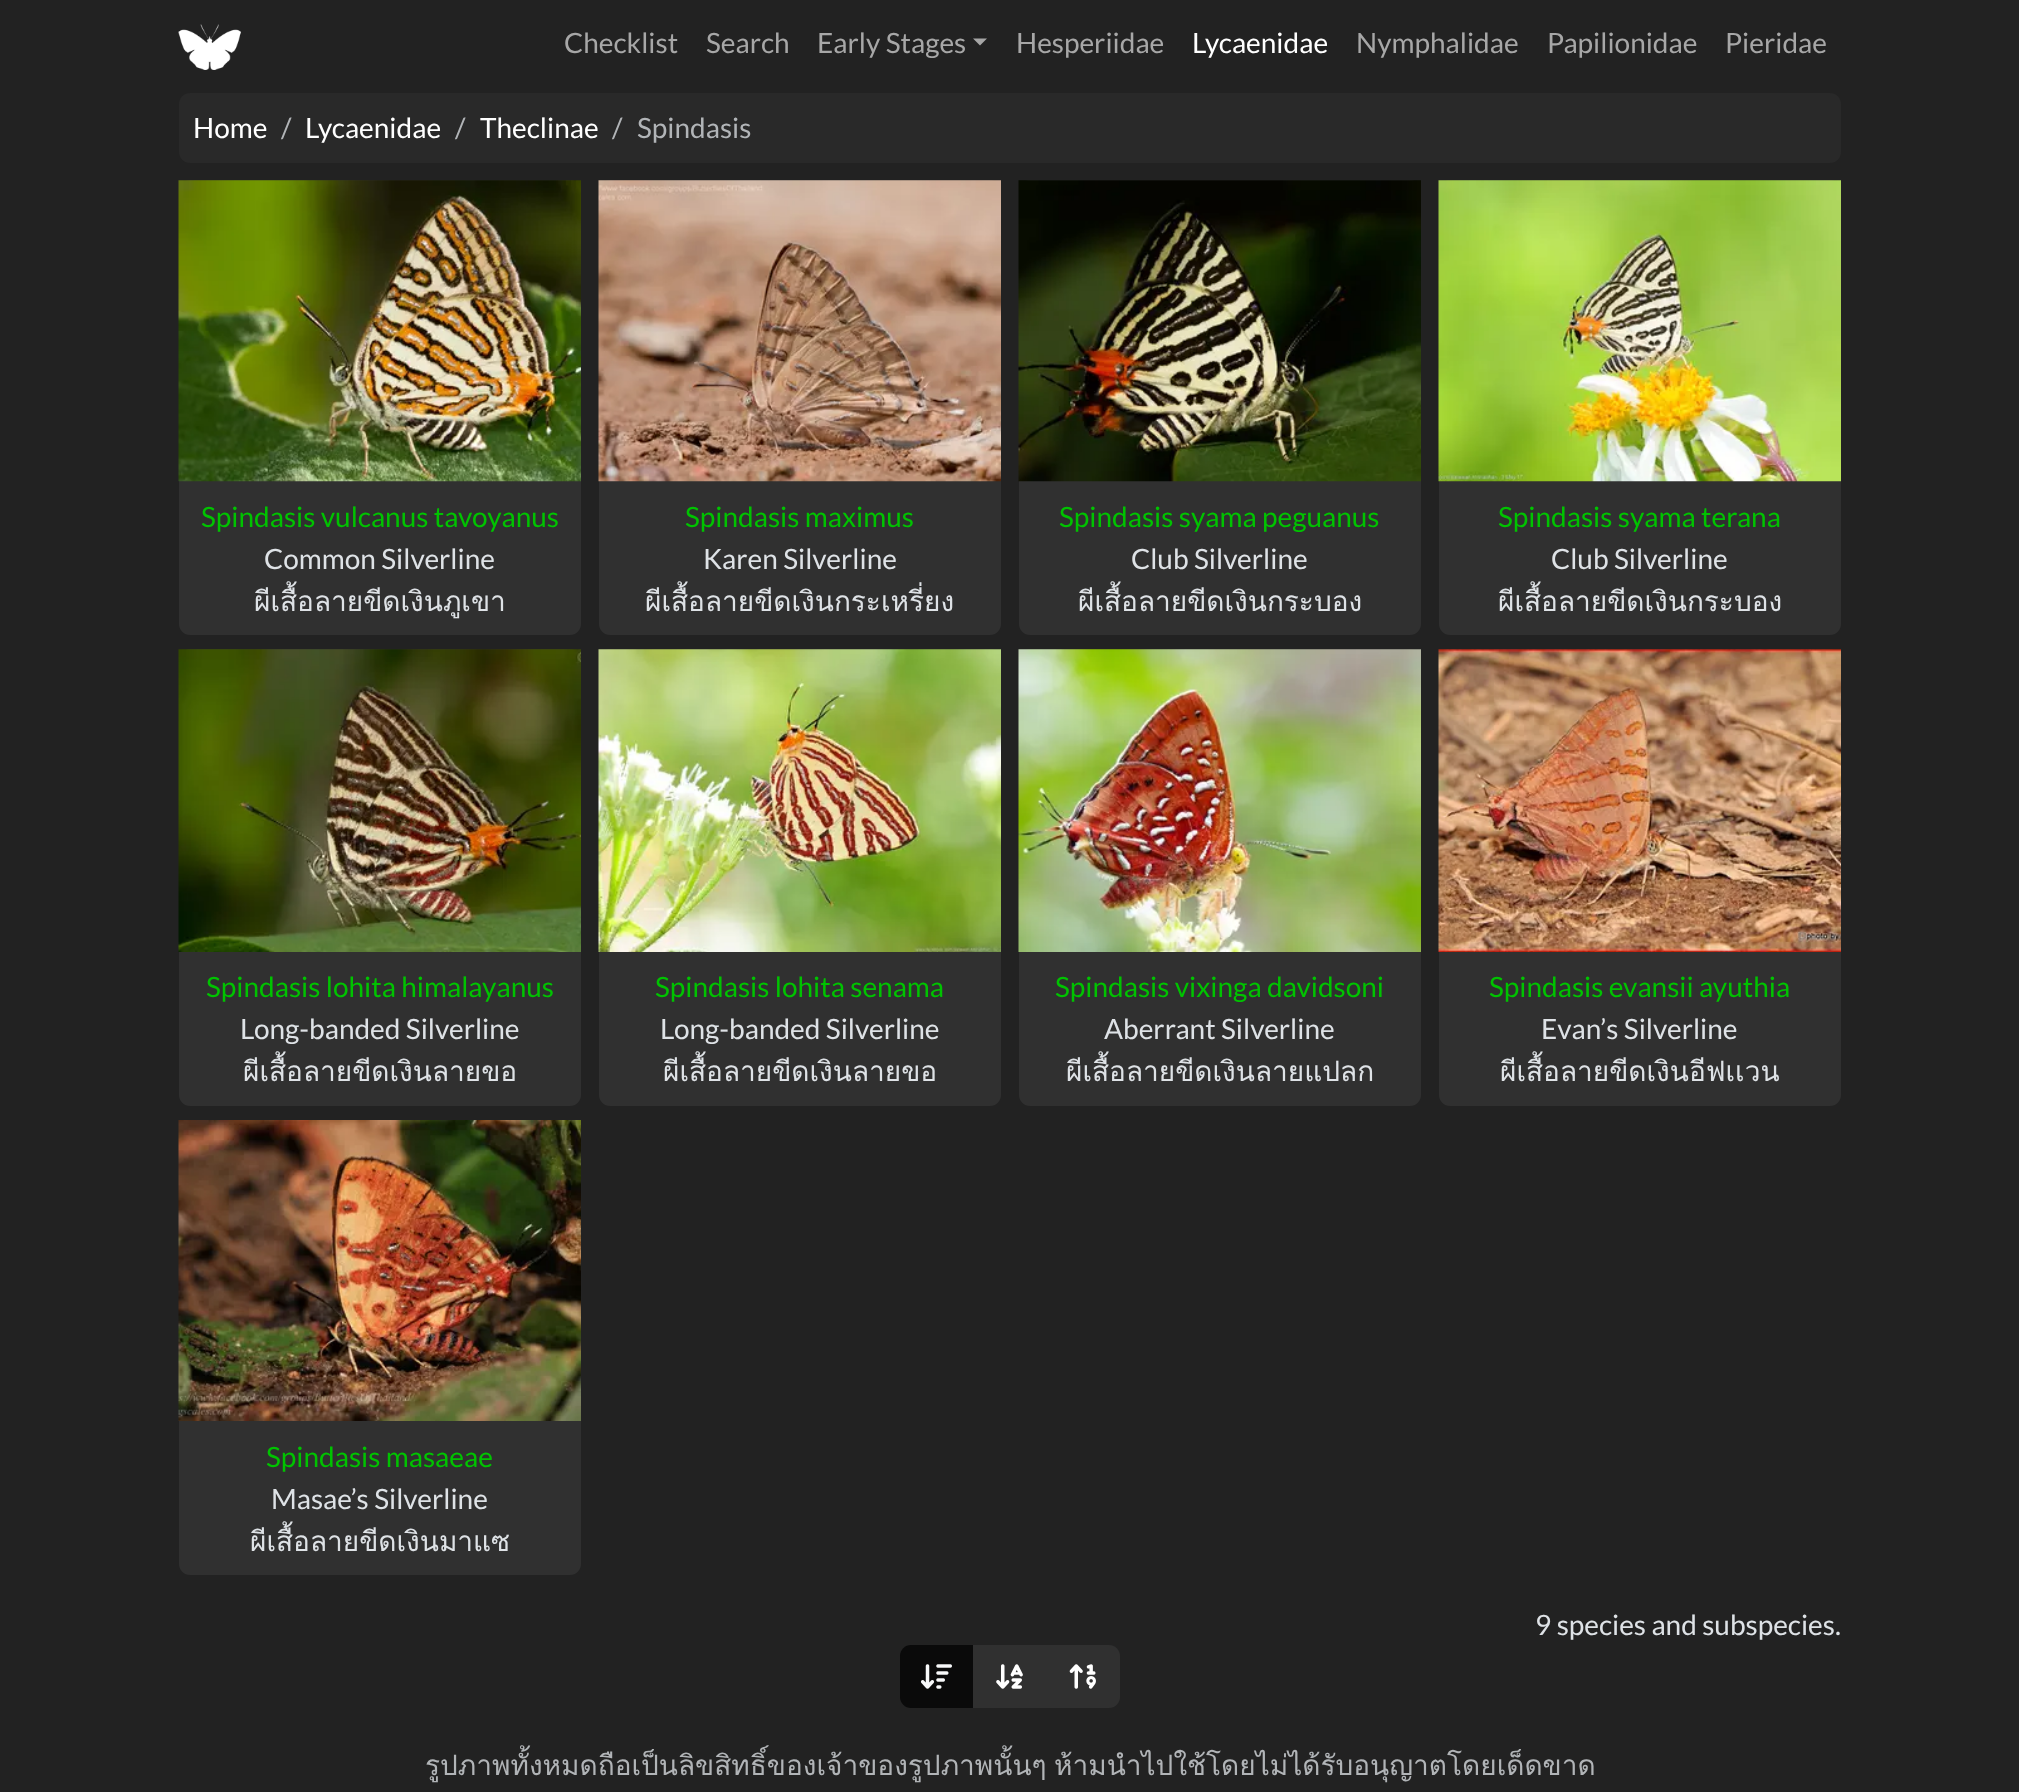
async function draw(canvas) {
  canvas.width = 2019;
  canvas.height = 1792;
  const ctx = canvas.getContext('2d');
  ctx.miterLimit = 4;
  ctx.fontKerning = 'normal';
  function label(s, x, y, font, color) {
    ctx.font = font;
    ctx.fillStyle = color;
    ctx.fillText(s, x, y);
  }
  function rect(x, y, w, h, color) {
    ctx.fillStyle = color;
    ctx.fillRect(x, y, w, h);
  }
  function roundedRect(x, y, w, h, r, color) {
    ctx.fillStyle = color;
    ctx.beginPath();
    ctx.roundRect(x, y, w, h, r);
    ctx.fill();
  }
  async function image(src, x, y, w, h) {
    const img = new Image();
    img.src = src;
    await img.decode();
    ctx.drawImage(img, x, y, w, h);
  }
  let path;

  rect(0, 0, 2019, 1792, '#222');
  await image('assets/img1.png', 178, 24, 63, 46);
  label('Checklist', 564, 53, '28px Lato', '#a7a7a7');
  label('Search', 706, 53, '28px Lato', '#a7a7a7');
  label('Early Stages', 817, 53, '28px Lato', '#a7a7a7');
  path = new Path2D('M973 38.5H987L980 45.5Z');
  ctx.fill(path);
  label('Hesperiidae', 1016, 53, '28px Lato', '#a7a7a7');
  label('Lycaenidae', 1192, 53, '28px Lato', '#fff');
  label('Nymphalidae', 1356, 53, '28px Lato', '#a7a7a7');
  label('Papilionidae', 1547, 53, '28px Lato', '#a7a7a7');
  label('Pieridae', 1725, 53, '28px Lato', '#a7a7a7');
  roundedRect(179, 93, 1662, 70, 11, '#292929');
  label('Home', 193, 138, '28px Lato', '#fff');
  label('/', 281, 138, '28px Lato', '#b1b4b7');
  label('Lycaenidae', 305, 138, '28px Lato', '#fff');
  label('/', 455, 138, '28px Lato', '#b1b4b7');
  label('Theclinae', 480, 138, '28px Lato', '#fff');
  label('/', 612, 138, '28px Lato', '#b1b4b7');
  label('Spindasis', 637, 138, '28px Lato', '#b1b4b7');
  roundedRect(179, 180, 402, 455, 11, '#303030');
  await image('assets/img2.png', 178, 180, 403, 302);
  label('Spindasis vulcanus tavoyanus', 201, 527, '28px Lato', '#00c300');
  label('Common Silverline', 264, 569, '28px Lato', '#dee2e6');
  label('ผีเสื้อลายขีดเงินภูเขา', 254, 611, '28px Loma', '#dee2e6');
  roundedRect(599, 180, 402, 455, 11, '#303030');
  await image('assets/img3.png', 598, 180, 403, 302);
  label('Spindasis maximus', 685, 527, '28px Lato', '#00c300');
  label('Karen Silverline', 703, 569, '28px Lato', '#dee2e6');
  label('ผีเสื้อลายขีดเงินกระเหรี่ยง', 645, 611, '28px Loma', '#dee2e6');
  roundedRect(1019, 180, 402, 455, 11, '#303030');
  await image('assets/img4.png', 1018, 180, 403, 302);
  label('Spindasis syama peguanus', 1059, 527, '28px Lato', '#00c300');
  label('Club Silverline', 1131, 569, '28px Lato', '#dee2e6');
  label('ผีเสื้อลายขีดเงินกระบอง', 1078, 611, '28px Loma', '#dee2e6');
  roundedRect(1439, 180, 402, 455, 11, '#303030');
  await image('assets/img5.png', 1438, 180, 403, 302);
  label('Spindasis syama terana', 1498, 527, '28px Lato', '#00c300');
  label('Club Silverline', 1551, 569, '28px Lato', '#dee2e6');
  label('ผีเสื้อลายขีดเงินกระบอง', 1498, 611, '28px Loma', '#dee2e6');
  roundedRect(179, 649, 402, 457, 11, '#303030');
  await image('assets/img6.png', 178, 649, 403, 303);
  label('Spindasis lohita himalayanus', 206, 997, '28px Lato', '#00c300');
  label('Long-banded Silverline', 240, 1039, '28px Lato', '#dee2e6');
  label('ผีเสื้อลายขีดเงินลายขอ', 243, 1081, '28px Loma', '#dee2e6');
  roundedRect(599, 649, 402, 457, 11, '#303030');
  await image('assets/img7.png', 598, 649, 403, 303);
  label('Spindasis lohita senama', 655, 997, '28px Lato', '#00c300');
  label('Long-banded Silverline', 660, 1039, '28px Lato', '#dee2e6');
  label('ผีเสื้อลายขีดเงินลายขอ', 663, 1081, '28px Loma', '#dee2e6');
  roundedRect(1019, 649, 402, 457, 11, '#303030');
  await image('assets/img8.png', 1018, 649, 403, 303);
  label('Spindasis vixinga davidsoni', 1055, 997, '28px Lato', '#00c300');
  label('Aberrant Silverline', 1104, 1039, '28px Lato', '#dee2e6');
  label('ผีเสื้อลายขีดเงินลายแปลก', 1066, 1081, '28px Loma', '#dee2e6');
  roundedRect(1439, 649, 402, 457, 11, '#303030');
  await image('assets/img9.png', 1438, 649, 403, 303);
  label('Spindasis evansii ayuthia', 1489, 997, '28px Lato', '#00c300');
  label('Evan’s Silverline', 1541, 1039, '28px Lato', '#dee2e6');
  label('ผีเสื้อลายขีดเงินอีฟเเวน', 1500, 1081, '28px Loma', '#dee2e6');
  roundedRect(179, 1120, 402, 455, 11, '#303030');
  await image('assets/img10.png', 178, 1120, 403, 301);
  label('Spindasis masaeae', 266, 1467, '28px Lato', '#00c300');
  label('Masae’s Silverline', 271, 1509, '28px Lato', '#dee2e6');
  label('ผีเสื้อลายขีดเงินมาแซ', 250, 1551, '28px Loma', '#dee2e6');
  label('9 species and subspecies.', 1535, 1635, '28px Lato', '#dee2e6');
  ctx.fillStyle = '#0a0a0a';
  ctx.beginPath();
  ctx.roundRect(900, 1645, 73, 63, [11, 0, 0, 11]);
  ctx.fill();
  await image('assets/img11.png', 920, 1664, 32, 25);
  rect(973, 1645, 74, 63, '#303030');
  await image('assets/img12.png', 996, 1664, 27, 25);
  ctx.beginPath();
  ctx.roundRect(1047, 1645, 73, 63, [0, 11, 11, 0]);
  ctx.fill();
  await image('assets/img13.png', 1069, 1664, 27, 25);
  ctx.wordSpacing = '-2px';
  label('รูปภาพทั้งหมดถือเป็นลิขสิทธิ์ของเจ้าของรูปภาพนั้นๆ ห้ามนำไปใช้โดยไม่ได้รับอนุญาตโดยเด็ดขาด', 425, 1775, '28px Loma', '#b1b4b7');
}

draw(document.querySelector('canvas'));
